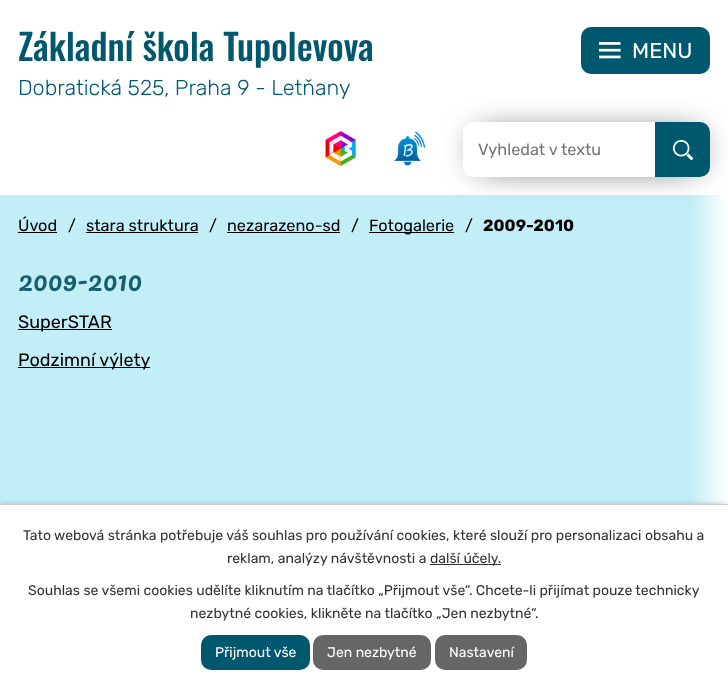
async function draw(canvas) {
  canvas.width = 728;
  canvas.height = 692;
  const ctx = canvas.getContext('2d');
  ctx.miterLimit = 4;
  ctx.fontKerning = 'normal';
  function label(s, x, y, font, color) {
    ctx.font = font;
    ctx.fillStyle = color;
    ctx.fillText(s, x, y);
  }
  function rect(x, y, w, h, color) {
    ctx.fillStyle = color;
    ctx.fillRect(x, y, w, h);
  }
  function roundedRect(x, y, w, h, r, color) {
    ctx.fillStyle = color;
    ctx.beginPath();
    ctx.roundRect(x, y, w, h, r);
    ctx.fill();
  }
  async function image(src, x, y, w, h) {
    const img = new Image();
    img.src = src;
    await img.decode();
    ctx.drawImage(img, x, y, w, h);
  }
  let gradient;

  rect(0, 0, 728, 692, '#fff');
  label('Základní škola Tupolevova', 18, 61, '500 36px Oswald', '#00586f');
  label('Dobratická 525, Praha 9 - Letňany', 18, 95, '300 21.6px Rubik', '#00586f');
  await image('assets/img1.png', 325, 131, 31, 35);
  await image('assets/img2.png', 394, 131, 31, 35);
  gradient = ctx.createLinearGradient(0, 486, 728, 486);
  gradient.addColorStop(0, '#fff');
  gradient.addColorStop(0, '#c2eef7');
  gradient.addColorStop(0.95, '#c2eef7');
  gradient.addColorStop(1, '#fff');
  ctx.fillStyle = gradient;
  ctx.fillRect(0, 195, 727, 309);
  ctx.fillStyle = '#000';
  ctx.filter = 'blur(17.5px)';
  ctx.beginPath();
  ctx.rect(479, 138, 217, 25);
  ctx.fill();
  ctx.filter = 'none';
  roundedRect(463, 122, 247, 55, 10, '#fff');
  roundedRect(463, 122, 160, 55, 10, '#fff');
  label('Vyhledat v textu', 478, 155, '16.25px Rubik', '#757575');
  ctx.fillStyle = '#00586f';
  ctx.beginPath();
  ctx.roundRect(655, 122, 55, 55, [0, 10, 10, 0]);
  ctx.fill();
  await image('assets/img3.png', 673, 140, 20, 20);
  roundedRect(581, 27, 129, 47, 10, '#00586f');
  await image('assets/img4.png', 599, 42, 22, 17);
  label('MENU', 632, 58, '21.6px Rubik', '#fff');
  label('Úvod', 18, 231, '16.25px Rubik', '#000');
  rect(18, 232, 39, 1, '#000');
  label('/', 68, 231, '16.25px Rubik', '#000');
  label('stara struktura', 86, 231, '16.25px Rubik', '#000');
  rect(86, 232, 112, 1, '#000');
  label('/', 209, 231, '16.25px Rubik', '#000');
  label('nezarazeno-sd', 227, 231, '16.25px Rubik', '#000');
  rect(227, 232, 113, 1, '#000');
  label('/', 351, 231, '16.25px Rubik', '#000');
  rect(369, 232, 85, 1, '#000');
  label('Fotogalerie', 369, 231, '16.25px Rubik', '#000');
  label('/', 465, 231, '16.25px Rubik', '#000');
  label('2009-2010', 483, 231, 'bold 16.25px Rubik', '#000');
  label('2009-2010', 18, 291, '27px Pacifico', '#175f6c');
  rect(18, 329, 94, 1, '#000');
  label('SuperSTAR', 18, 328, '18px Rubik', '#000');
  rect(18, 367, 132, 1, '#000');
  label('Podzimní výlety', 18, 366, '18px Rubik', '#000');
  ctx.fillStyle = '#00000033';
  ctx.filter = 'blur(2.5px)';
  ctx.beginPath();
  ctx.rect(0, 504, 728, 188);
  ctx.fill();
  ctx.filter = 'none';
  rect(0, 505, 728, 187, '#fff');
  rect(0, 504, 728, 1, '#ccc');
  label('Tato webová stránka potřebuje váš souhlas pro používání cookies, které slouží pro personalizaci obsahu a', 23, 540, '14px Rubik', '#333');
  label('reklam, analýzy návštěvnosti a', 227, 563, '14px Rubik', '#333');
  rect(430, 564, 71, 1, '#333');
  label('další účely.', 430, 563, '14px Rubik', '#333');
  label('Souhlas se všemi cookies udělíte kliknutím na tlačítko „Přijmout vše“. Chcete-li přijímat pouze technicky', 28, 595, '14px Rubik', '#333');
  label('nezbytné cookies, klikněte na tlačítko „Jen nezbytné“.', 190, 618, '14px Rubik', '#333');
  roundedRect(201, 635, 109, 35, 10, '#00586f');
  label('Přijmout vše', 215, 657, '14px Rubik', '#fff');
  roundedRect(313, 635, 118, 35, 10, '#666');
  label('Jen nezbytné', 327, 657, '14px Rubik', '#fff');
  roundedRect(435, 635, 92, 35, 10, '#666');
  label('Nastavení', 449, 657, '14px Rubik', '#fff');
}

draw(document.querySelector('canvas'));
